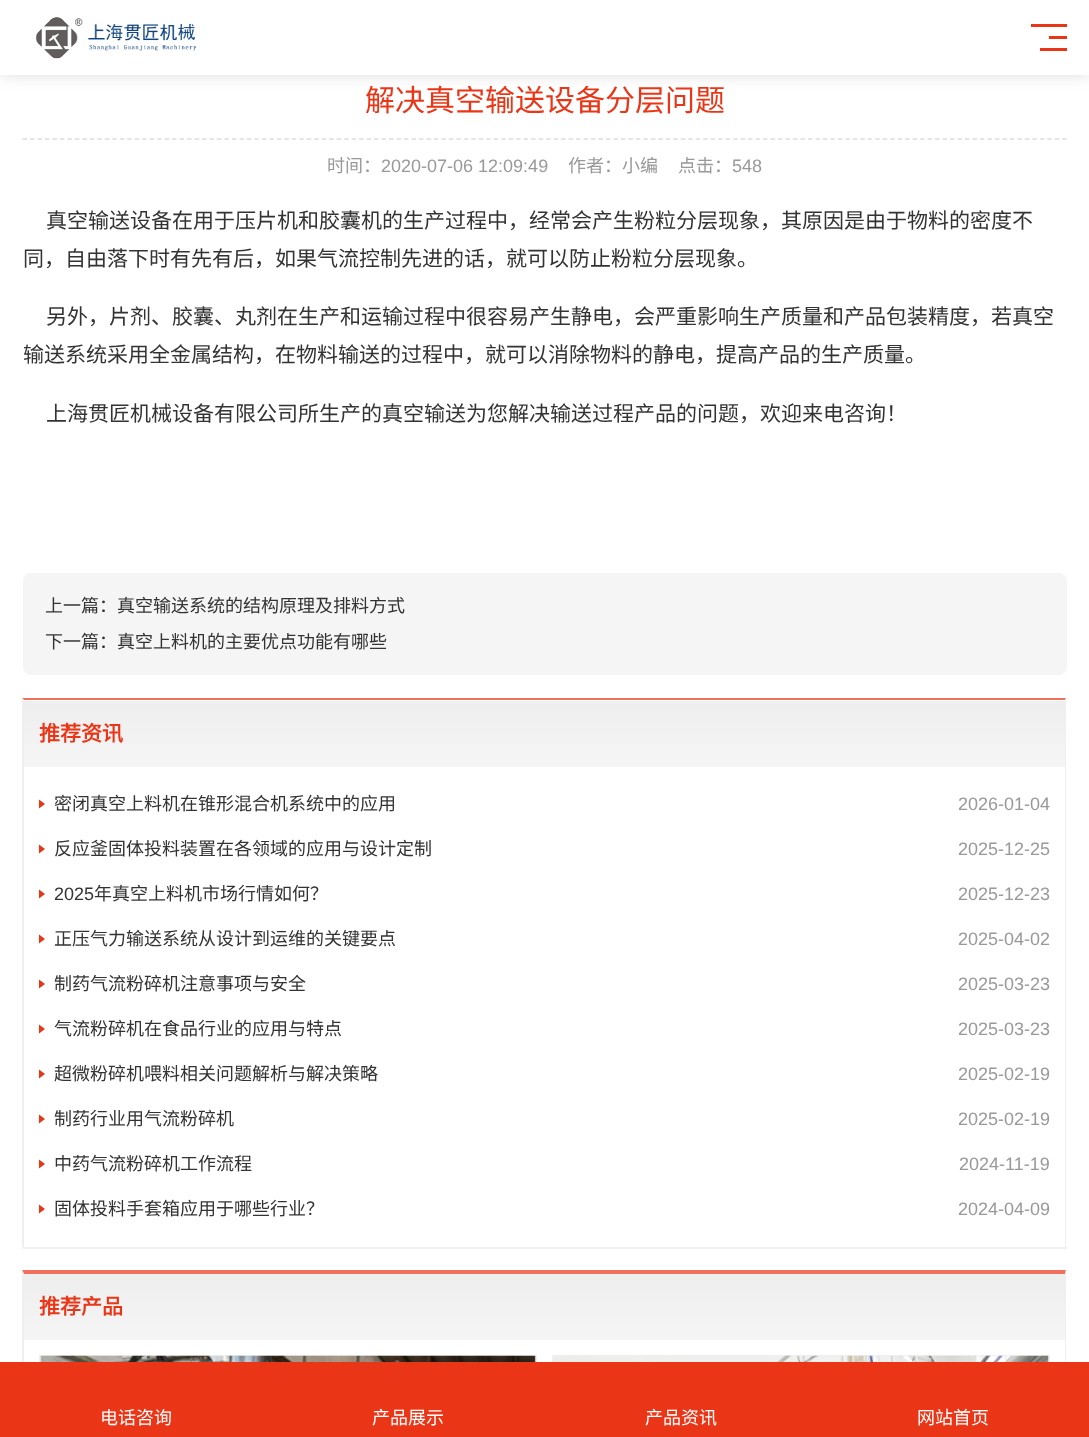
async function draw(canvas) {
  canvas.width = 1089;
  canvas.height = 1437;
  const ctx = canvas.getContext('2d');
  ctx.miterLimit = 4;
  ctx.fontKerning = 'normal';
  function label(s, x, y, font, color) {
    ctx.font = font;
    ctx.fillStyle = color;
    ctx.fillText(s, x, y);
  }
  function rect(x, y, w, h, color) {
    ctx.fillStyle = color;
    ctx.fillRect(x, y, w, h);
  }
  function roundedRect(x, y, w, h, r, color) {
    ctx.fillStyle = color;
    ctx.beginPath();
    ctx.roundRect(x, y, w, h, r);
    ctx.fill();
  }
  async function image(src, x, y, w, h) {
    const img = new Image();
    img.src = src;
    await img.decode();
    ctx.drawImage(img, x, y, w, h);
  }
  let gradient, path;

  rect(0, 0, 1089, 1437, '#fff');
  ctx.fillStyle = '#ddd';
  ctx.filter = 'blur(7.5px)';
  ctx.beginPath();
  ctx.rect(0, 0, 1089, 75);
  ctx.fill();
  ctx.filter = 'none';
  rect(0, 0, 1089, 75, '#fff');
  await image('assets/img1.png', 36, 17, 161, 42);
  rect(1031, 24, 36, 3, '#ea3516');
  rect(1049, 36, 18, 3, '#ea3516');
  rect(1040, 48, 27, 3, '#ea3516');
  label('解决真空输送设备分层问题', 365, 111, '30px Noto Sans CJK SC', '#ea3516');
  path = new Path2D('M22.5 139H1066.5');
  ctx.strokeStyle = '#ddd';
  ctx.lineWidth = 1.5;
  ctx.setLineDash([4.5, 2.98]);
  ctx.stroke(path);
  label('时间：', 327, 172, '18px Noto Sans CJK SC', '#999');
  label('2020-07-06 12:09:49', 381, 172, '18px Liberation Sans', '#999');
  label('作者：小编', 568, 172, '18px Noto Sans CJK SC', '#999');
  label('点击：', 678, 172, '18px Noto Sans CJK SC', '#999');
  label('548', 732, 172, '18px Liberation Sans', '#999');
  label('真空输送设备在用于压片机和胶囊机的生产过程中，经常会产生粉粒分层现象，其原因是由于物料的密度不', 46, 228, '21px Noto Sans CJK SC', '#333');
  label('同，自由落下时有先有后，如果气流控制先进的话，就可以防止粉粒分层现象。', 23, 266, '21px Noto Sans CJK SC', '#333');
  label('另外，片剂、胶囊、丸剂在生产和运输过程中很容易产生静电，会严重影响生产质量和产品包装精度，若真空', 46, 324, '21px Noto Sans CJK SC', '#333');
  label('输送系统采用全金属结构，在物料输送的过程中，就可以消除物料的静电，提高产品的生产质量。', 23, 362, '21px Noto Sans CJK SC', '#333');
  label('上海贯匠机械设备有限公司所生产的真空输送为您解决输送过程产品的问题，欢迎来电咨询！', 46, 421, '21px Noto Sans CJK SC', '#333');
  roundedRect(23, 573, 1044, 102, 8, '#f5f5f5');
  label('上一篇：真空输送系统的结构原理及排料方式', 45, 612, '18px Noto Sans CJK SC', '#333');
  label('下一篇：真空上料机的主要优点功能有哪些', 45, 648, '18px Noto Sans CJK SC', '#333');
  ctx.fillStyle = '#f0715b';
  path = new Path2D('M22 698H1066L1065 700H24Z');
  ctx.fill(path);
  ctx.fillStyle = '#efefef';
  path = new Path2D('M1066 698V1248L1065 1246V700Z');
  ctx.fill(path);
  rect(23, 1247, 1044, 2, '#efefef');
  path = new Path2D('M22 1248V698L24 700V1246Z');
  ctx.fill(path);
  gradient = ctx.createLinearGradient(545, 767, 545, 701);
  gradient.addColorStop(0, '#f5f5f5');
  gradient.addColorStop(1, '#eee');
  ctx.fillStyle = gradient;
  ctx.fillRect(24, 701, 1041, 66);
  label('推荐资讯', 39, 741, 'bold 21px Noto Sans CJK SC', '#ea3516');
  path = new Path2D('M39 808.5V799.5L45 804Z');
  ctx.fill(path);
  label('密闭真空上料机在锥形混合机系统中的应用', 54, 810, '18px Noto Sans CJK SC', '#333');
  label('2026-01-04', 958, 810, '18px Liberation Sans', '#999');
  ctx.fillStyle = '#ea3516';
  path = new Path2D('M39 853.5V844.5L45 849Z');
  ctx.fill(path);
  label('反应釜固体投料装置在各领域的应用与设计定制', 54, 855, '18px Noto Sans CJK SC', '#333');
  label('2025-12-25', 958, 855, '18px Liberation Sans', '#999');
  ctx.fillStyle = '#ea3516';
  path = new Path2D('M39 898.5V889.5L45 894Z');
  ctx.fill(path);
  label('2025', 54, 900, '18px Liberation Sans', '#333');
  label('年真空上料机市场行情如何？', 94, 900, '18px Noto Sans CJK SC', '#333');
  label('2025-12-23', 958, 900, '18px Liberation Sans', '#999');
  ctx.fillStyle = '#ea3516';
  path = new Path2D('M39 943.5V934.5L45 939Z');
  ctx.fill(path);
  label('正压气力输送系统从设计到运维的关键要点', 54, 945, '18px Noto Sans CJK SC', '#333');
  label('2025-04-02', 958, 945, '18px Liberation Sans', '#999');
  ctx.fillStyle = '#ea3516';
  path = new Path2D('M39 988.5V979.5L45 984Z');
  ctx.fill(path);
  label('制药气流粉碎机注意事项与安全', 54, 990, '18px Noto Sans CJK SC', '#333');
  label('2025-03-23', 958, 990, '18px Liberation Sans', '#999');
  ctx.fillStyle = '#ea3516';
  path = new Path2D('M39 1033.5V1024.5L45 1029Z');
  ctx.fill(path);
  label('气流粉碎机在食品行业的应用与特点', 54, 1035, '18px Noto Sans CJK SC', '#333');
  label('2025-03-23', 958, 1035, '18px Liberation Sans', '#999');
  ctx.fillStyle = '#ea3516';
  path = new Path2D('M39 1078.5V1069.5L45 1074Z');
  ctx.fill(path);
  label('超微粉碎机喂料相关问题解析与解决策略', 54, 1080, '18px Noto Sans CJK SC', '#333');
  label('2025-02-19', 958, 1080, '18px Liberation Sans', '#999');
  ctx.fillStyle = '#ea3516';
  path = new Path2D('M39 1123.5V1114.5L45 1119Z');
  ctx.fill(path);
  label('制药行业用气流粉碎机', 54, 1125, '18px Noto Sans CJK SC', '#333');
  label('2025-02-19', 958, 1125, '18px Liberation Sans', '#999');
  ctx.fillStyle = '#ea3516';
  path = new Path2D('M39 1168.5V1159.5L45 1164Z');
  ctx.fill(path);
  label('中药气流粉碎机工作流程', 54, 1170, '18px Noto Sans CJK SC', '#333');
  label('2024-11-19', 959, 1170, '18px Liberation Sans', '#999');
  ctx.fillStyle = '#ea3516';
  path = new Path2D('M39 1213.5V1204.5L45 1209Z');
  ctx.fill(path);
  label('固体投料手套箱应用于哪些行业？', 54, 1215, '18px Noto Sans CJK SC', '#333');
  label('2024-04-09', 958, 1215, '18px Liberation Sans', '#999');
  ctx.fillStyle = '#f0715b';
  path = new Path2D('M22 1270H1066L1065 1274H24Z');
  ctx.fill(path);
  ctx.fillStyle = '#efefef';
  path = new Path2D('M1066 1270V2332L1065 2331V1274Z');
  ctx.fill(path);
  path = new Path2D('M22 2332V1270L24 1274V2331Z');
  ctx.fill(path);
  gradient = ctx.createLinearGradient(545, 1340, 545, 1274);
  gradient.addColorStop(0, '#f5f5f5');
  gradient.addColorStop(1, '#eee');
  ctx.fillStyle = gradient;
  ctx.fillRect(24, 1274, 1041, 66);
  label('推荐产品', 39, 1314, 'bold 21px Noto Sans CJK SC', '#ea3516');
  ctx.strokeStyle = '#efefef';
  ctx.lineWidth = 2;
  ctx.setLineDash([]);
  ctx.strokeRect(40, 1356, 496, 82);
  await image('assets/img2.png', 40, 1355, 496, 7);
  ctx.strokeRect(553, 1356, 496, 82);
  await image('assets/img3.png', 554, 1355, 495, 7);
  rect(0, 1362, 1089, 75, '#ea3516');
  label('电话咨询', 100, 1424, '18px Noto Sans CJK SC', '#fff');
  label('产品展示', 372, 1424, '18px Noto Sans CJK SC', '#fff');
  label('产品资讯', 645, 1424, '18px Noto Sans CJK SC', '#fff');
  label('网站首页', 917, 1424, '18px Noto Sans CJK SC', '#fff');
}

draw(document.querySelector('canvas'));
